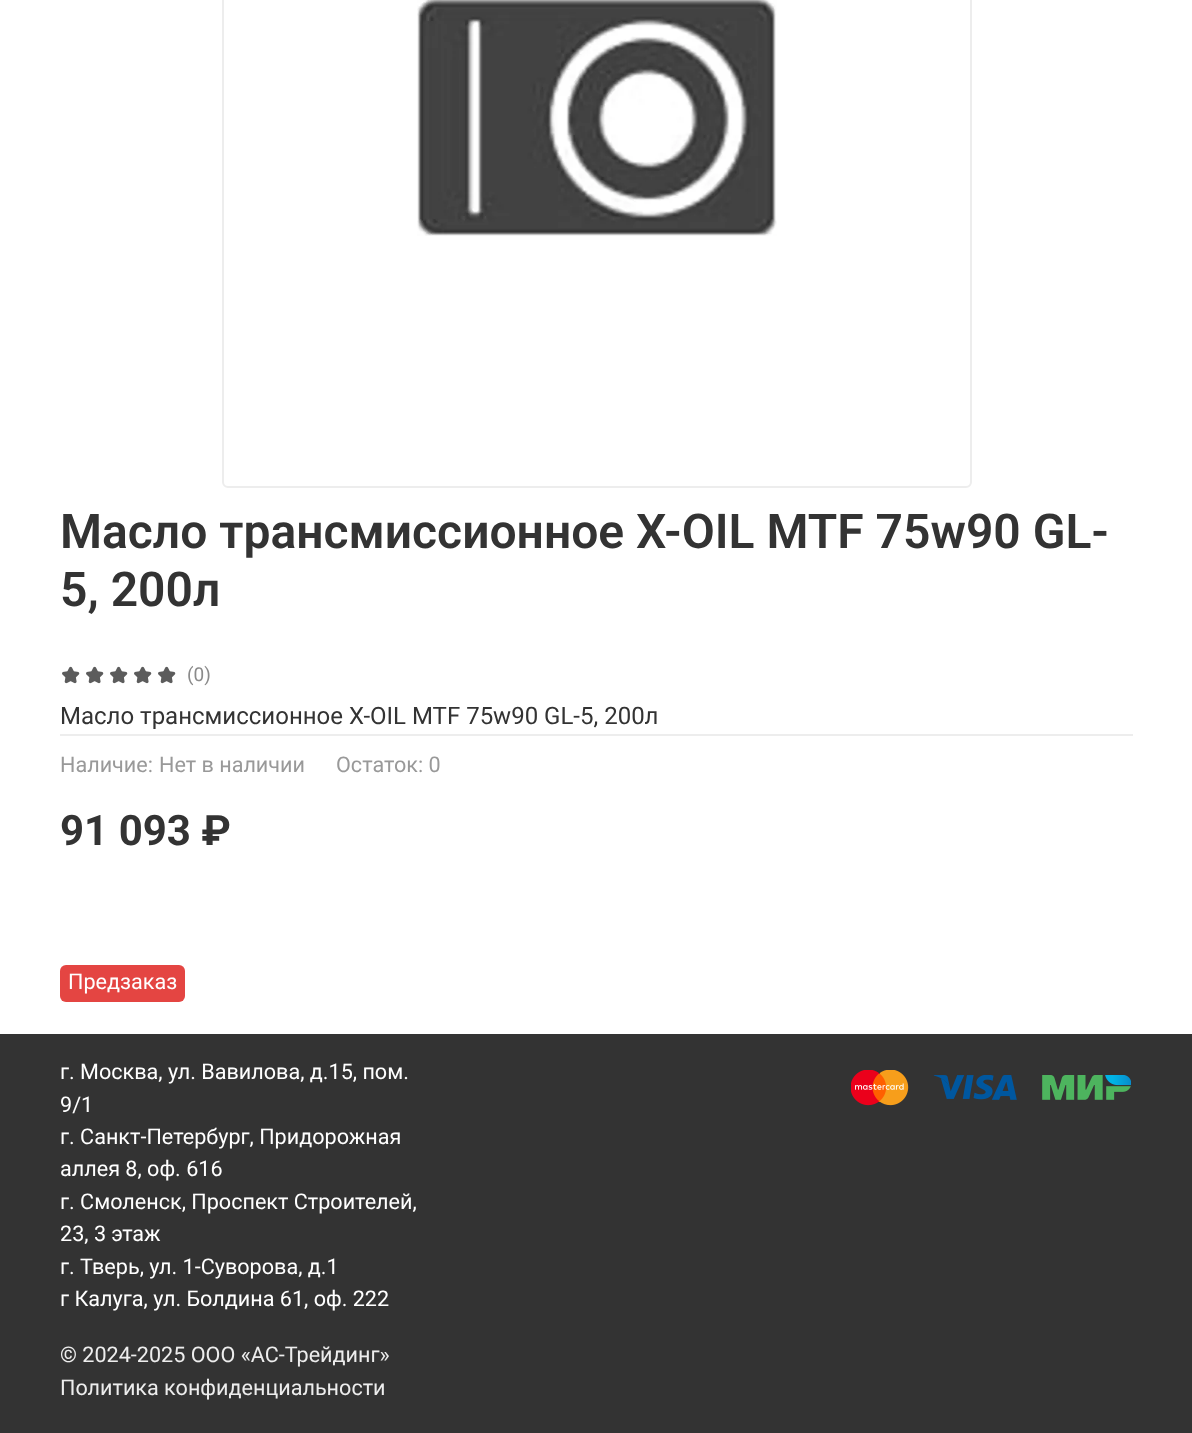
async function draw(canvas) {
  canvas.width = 1192;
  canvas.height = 1433;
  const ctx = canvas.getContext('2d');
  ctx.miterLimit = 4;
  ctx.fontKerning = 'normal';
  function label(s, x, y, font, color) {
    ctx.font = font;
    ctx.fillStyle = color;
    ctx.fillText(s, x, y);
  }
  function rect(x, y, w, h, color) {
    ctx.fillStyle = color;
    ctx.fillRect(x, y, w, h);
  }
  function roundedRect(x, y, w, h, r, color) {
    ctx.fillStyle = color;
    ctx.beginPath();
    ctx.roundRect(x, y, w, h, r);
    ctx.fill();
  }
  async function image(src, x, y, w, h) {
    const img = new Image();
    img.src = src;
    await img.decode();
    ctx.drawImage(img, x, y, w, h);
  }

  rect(0, 0, 1192, 1433, '#fff');
  ctx.beginPath();
  ctx.roundRect(223, -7, 748, 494, 5);
  ctx.strokeStyle = '#ededed';
  ctx.lineWidth = 2;
  ctx.stroke();
  await image('assets/img1.png', 417, 0, 360, 236);
  label('Масло трансмиссионное X-OIL MTF 75w90 GL-', 60, 548, '600 48px Roboto', '#333');
  label('5, 200л', 60, 606, '600 48px Roboto', '#333');
  await image('assets/img2.png', 62, 666, 18, 18);
  await image('assets/img2.png', 86, 666, 18, 18);
  await image('assets/img2.png', 110, 666, 18, 18);
  await image('assets/img2.png', 134, 666, 18, 18);
  await image('assets/img2.png', 158, 666, 18, 18);
  label('(0)', 187, 681, '19px Roboto', '#8b8b8b');
  rect(60, 734, 1073, 2, '#ededed');
  label('Масло трансмиссионное X-OIL MTF 75w90 GL-5, 200л', 60, 724, '24px Roboto', '#333');
  label('Наличие:', 60, 772, '21.6px Roboto', '#999');
  label('Нет в наличии', 159, 772, '21.6px Roboto', '#999');
  label('Остаток: 0', 336, 772, '21.6px Roboto', '#999');
  label('91 093 ₽', 60, 845, 'bold 42px Roboto', '#333');
  roundedRect(60, 965, 125, 37, 6, '#e44542');
  label('Предзаказ', 68, 989, '21.6px Roboto', '#fff');
  rect(0, 1034, 1192, 399, '#333');
  label('г. Москва, ул. Вавилова, д.15, пом.', 60, 1079, '21.6px Roboto', '#fff');
  label('9/1', 60, 1112, '21.6px Roboto', '#fff');
  label('г. Санкт-Петербург, Придорожная', 60, 1144, '21.6px Roboto', '#fff');
  label('аллея 8, оф. 616', 60, 1176, '21.6px Roboto', '#fff');
  label('г. Смоленск, Проспект Строителей,', 60, 1209, '21.6px Roboto', '#fff');
  label('23, 3 этаж', 60, 1241, '21.6px Roboto', '#fff');
  label('г. Тверь, ул. 1-Суворова, д.1', 60, 1274, '21.6px Roboto', '#fff');
  label('г Калуга, ул. Болдина 61, оф. 222', 60, 1306, '21.6px Roboto', '#fff');
  await image('assets/img3.png', 851, 1070, 58, 36);
  await image('assets/img4.png', 933, 1075, 84, 25);
  await image('assets/img5.png', 1042, 1075, 89, 25);
  label('© 2024-2025 ООО «АС-Трейдинг»', 60, 1362, '21.6px Roboto', '#ededed');
  label('Политика конфиденциальности', 60, 1395, '21.6px Roboto', '#ededed');
}

draw(document.querySelector('canvas'));
